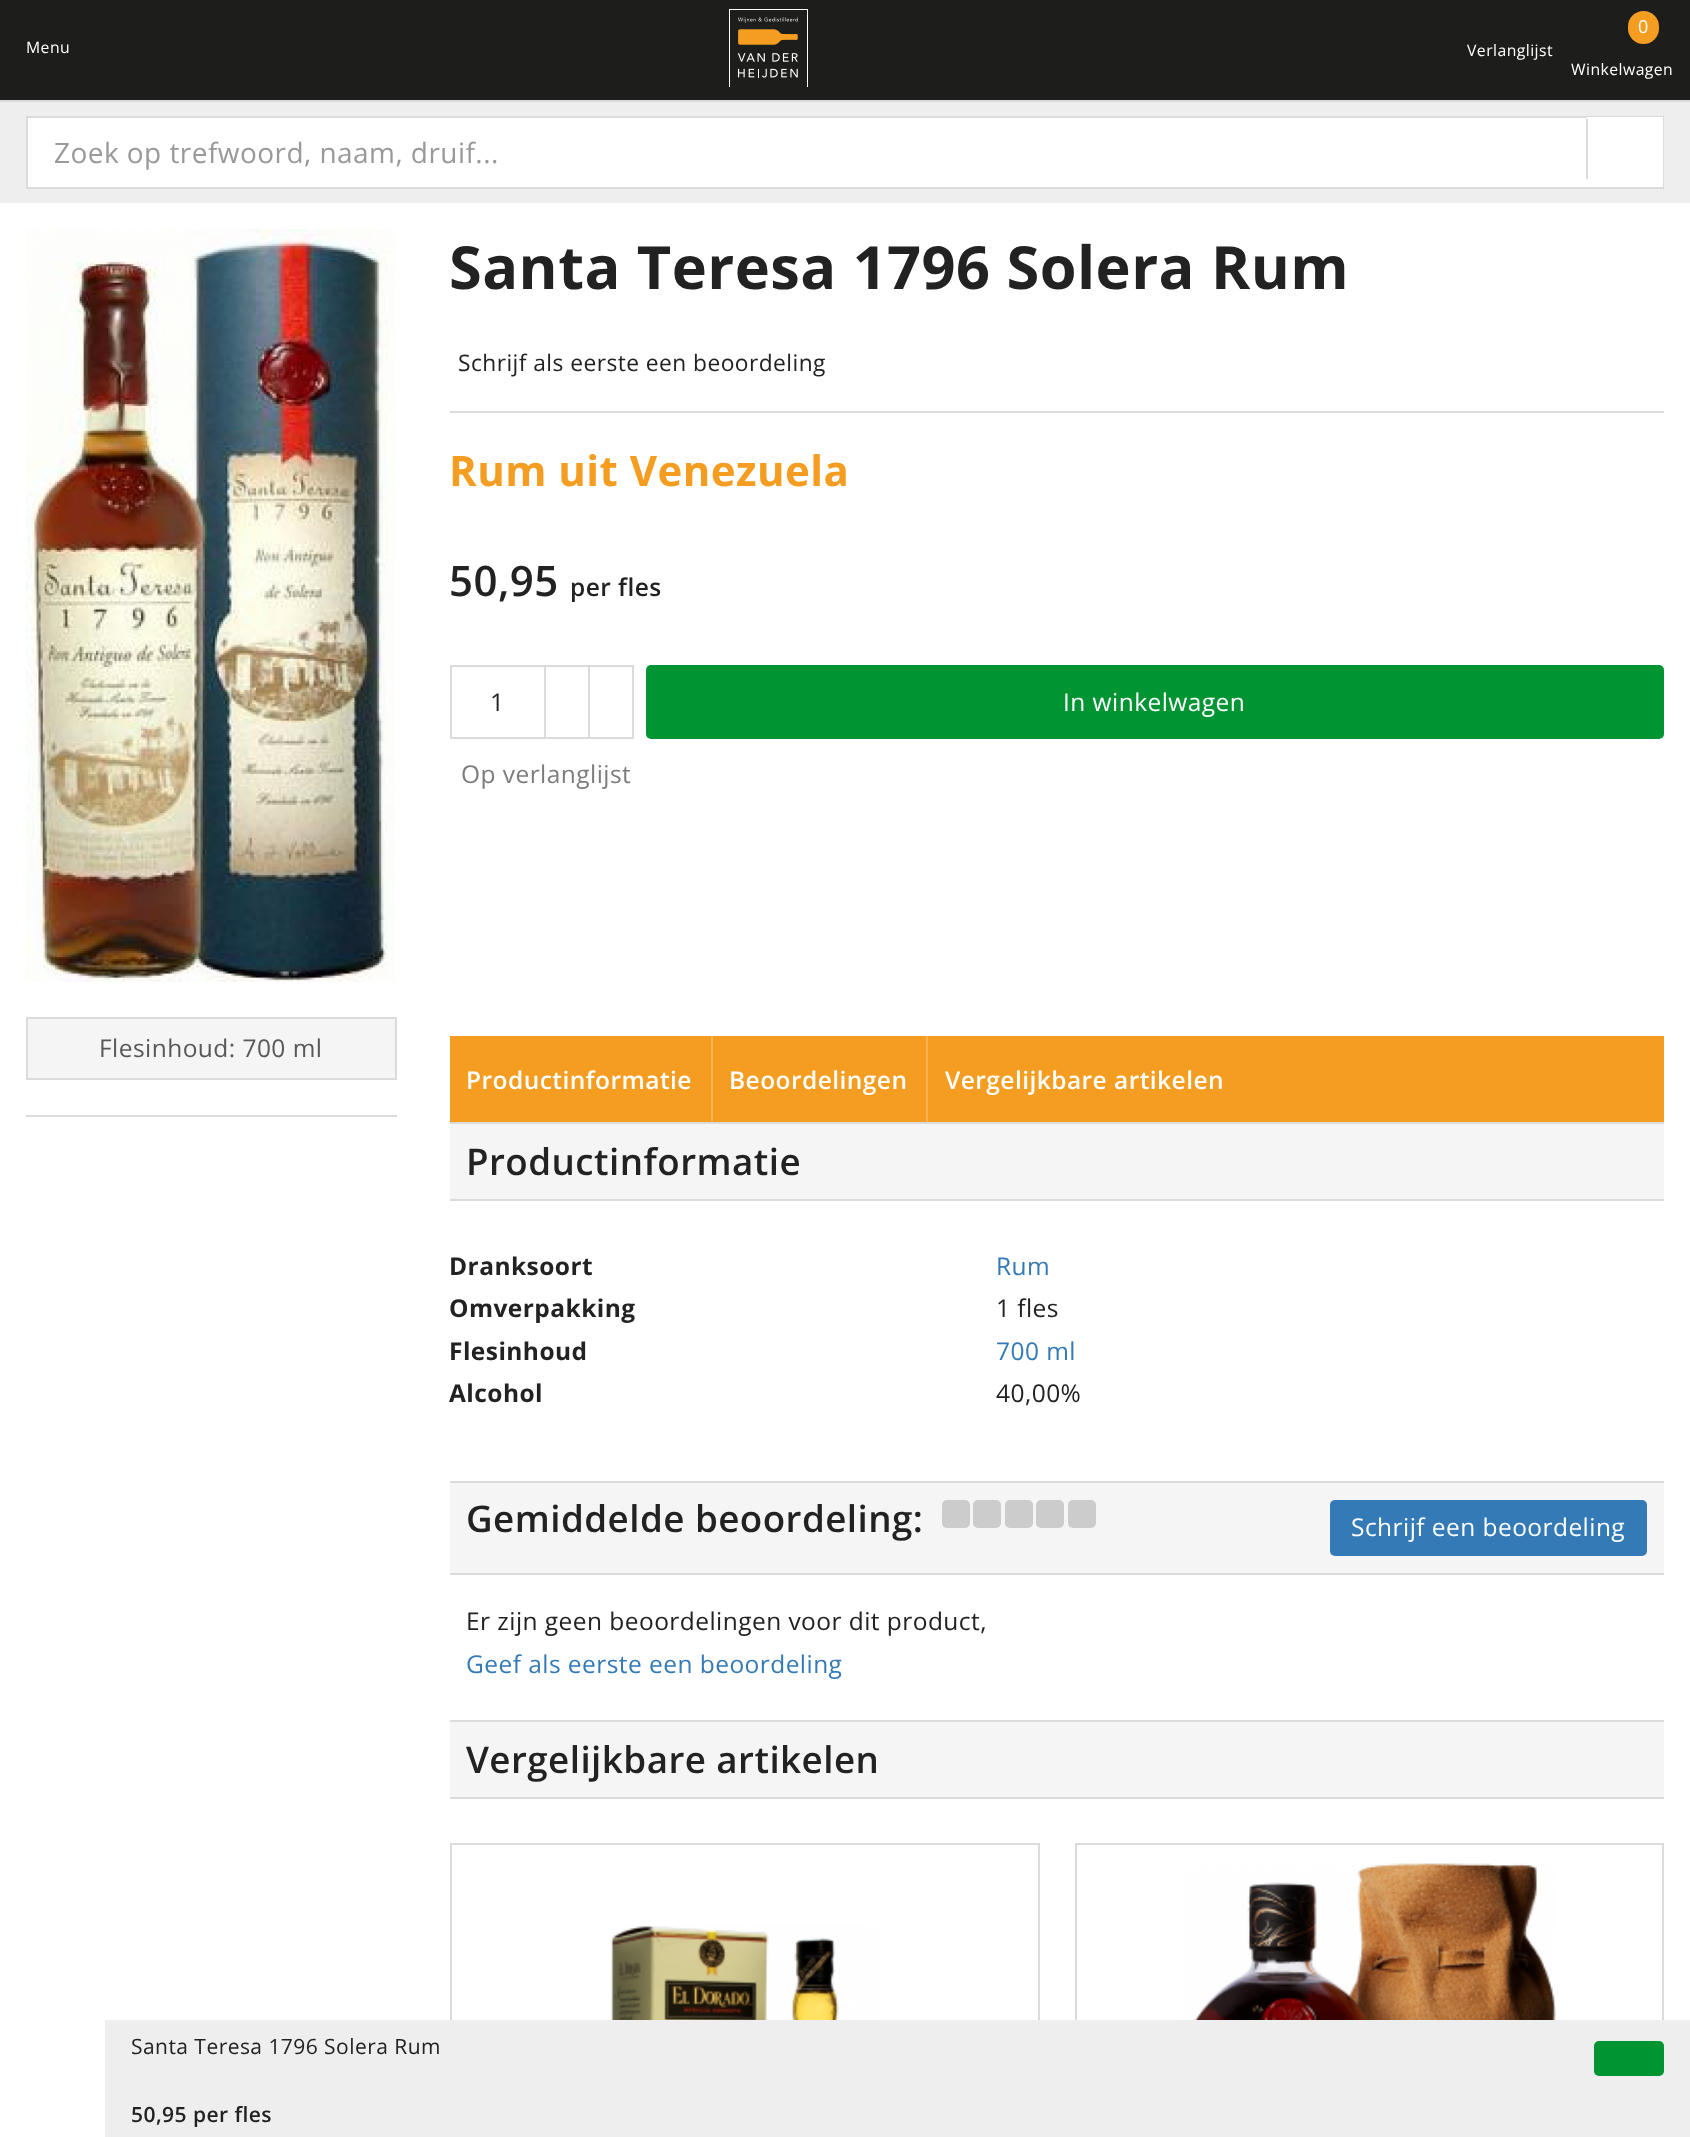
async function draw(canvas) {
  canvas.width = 1690;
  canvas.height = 2137;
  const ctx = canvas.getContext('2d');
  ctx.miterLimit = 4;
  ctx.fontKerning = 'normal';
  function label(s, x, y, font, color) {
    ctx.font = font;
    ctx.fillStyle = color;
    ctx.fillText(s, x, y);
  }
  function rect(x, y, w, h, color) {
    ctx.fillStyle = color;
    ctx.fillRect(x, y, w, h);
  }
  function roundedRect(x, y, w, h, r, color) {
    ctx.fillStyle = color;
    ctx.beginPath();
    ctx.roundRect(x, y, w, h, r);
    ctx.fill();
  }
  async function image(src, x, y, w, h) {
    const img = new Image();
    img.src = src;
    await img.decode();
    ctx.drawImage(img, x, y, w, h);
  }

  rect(0, 0, 1690, 2137, '#fff');
  rect(0, 0, 1690, 100, '#1d1d1b');
  rect(0, 100, 1690, 2, '#dbdbdb');
  ctx.letterSpacing = '0.45px';
  label('Menu', 26, 53, '15.75px Open Sans', '#fff');
  await image('assets/img1.png', 729, 9, 79, 78);
  label('Verlanglijst', 1467, 56, '15.75px Open Sans', '#fff');
  roundedRect(1628, 11, 31, 33, 15.5, '#f59d21');
  label('0', 1638, 33, '18px Open Sans', '#fff');
  label('Winkelwagen', 1571, 75, '15.75px Open Sans', '#fff');
  rect(0, 102, 1690, 101, '#eee');
  rect(28, 118, 1559, 69, '#fff');
  ctx.strokeStyle = '#dbdbdb';
  ctx.lineWidth = 2;
  ctx.strokeRect(27, 117, 1636, 71);
  label('Zoek op trefwoord, naam, druif...', 54, 163, '28px Open Sans', '#999');
  rect(1587, 117, 76, 70, '#fff');
  rect(1586, 119, 2, 60, '#dbdbdb');
  await image('assets/img2.png', 26, 229, 369, 753);
  ctx.fillStyle = '#f5f5f5';
  ctx.beginPath();
  ctx.rect(27, 1018, 369, 61);
  ctx.fill();
  ctx.stroke();
  label('Flesinhoud: 700 ml', 99, 1057, '24.5px Open Sans', '#585858');
  rect(26, 1115, 371, 2, '#dbdbdb');
  rect(450, 411, 1214, 2, '#dbdbdb');
  label('Santa Teresa 1796 Solera Rum', 449, 289, 'bold 59.5px Open Sans', '#222');
  label('Schrijf als eerste een beoordeling', 458, 371, '22.75px Open Sans', '#222');
  label('Rum uit Venezuela', 449, 486, 'bold 42px Open Sans', '#f59d21');
  label('50,95', 449, 596, '600 42px Open Sans', '#222');
  label('per fles', 570, 596, '600 24.5px Open Sans', '#222');
  ctx.strokeRect(451, 666, 94, 72);
  label('1', 490, 711, '24.5px Open Sans', '#222');
  ctx.strokeRect(545, 666, 44, 72);
  ctx.strokeRect(589, 666, 44, 72);
  roundedRect(646, 665, 1018, 74, 5, '#009432');
  label('In winkelwagen', 1063, 711, '24.5px Open Sans', '#fff');
  label('Op verlanglijst', 461, 783, '24.5px Open Sans', '#7c7c7c');
  rect(450, 1036, 1214, 86, '#f59d21');
  rect(711, 1036, 2, 86, '#f7b14d');
  label('Productinformatie', 466, 1089, '600 24.5px Open Sans', '#fff');
  rect(926, 1036, 2, 86, '#f7b14d');
  label('Beoordelingen', 729, 1089, '600 24.5px Open Sans', '#fff');
  label('Vergelijkbare artikelen', 945, 1089, '600 24.5px Open Sans', '#fff');
  rect(450, 1124, 1214, 75, '#f5f5f5');
  rect(450, 1122, 1214, 2, '#dbdbdb');
  rect(450, 1199, 1214, 2, '#dbdbdb');
  label('Productinformatie', 466, 1175, '600 36.75px Open Sans', '#222');
  label('Dranksoort', 449, 1275, 'bold 24.5px Open Sans', '#222');
  label('Rum', 996, 1275, '24.5px Open Sans', '#337ab7');
  label('Omverpakking', 449, 1317, 'bold 24.5px Open Sans', '#222');
  label('1 fles', 996, 1317, '24.5px Open Sans', '#222');
  label('Flesinhoud', 449, 1360, 'bold 24.5px Open Sans', '#222');
  label('700 ml', 996, 1360, '24.5px Open Sans', '#337ab7');
  label('Alcohol', 449, 1402, 'bold 24.5px Open Sans', '#222');
  label('40,00%', 996, 1402, '24.5px Open Sans', '#222');
  rect(450, 1483, 1214, 90, '#f5f5f5');
  rect(450, 1481, 1214, 2, '#dbdbdb');
  rect(450, 1573, 1214, 2, '#dbdbdb');
  label('Gemiddelde beoordeling:', 466, 1532, '600 36.75px Open Sans', '#222');
  roundedRect(942, 1500, 28, 28, 5, '#ccc');
  roundedRect(973, 1500, 28, 28, 5, '#ccc');
  roundedRect(1005, 1500, 28, 28, 5, '#ccc');
  roundedRect(1036, 1500, 28, 28, 5, '#ccc');
  roundedRect(1068, 1500, 28, 28, 5, '#ccc');
  roundedRect(1330, 1500, 317, 56, 5, '#337ab7');
  label('Schrijf een beoordeling', 1351, 1536, '24.5px Open Sans', '#fff');
  label('Er zijn geen beoordelingen voor dit product,', 466, 1630, '24.5px Open Sans', '#222');
  label('Geef als eerste een beoordeling', 466, 1673, '24.5px Open Sans', '#337ab7');
  rect(450, 1722, 1214, 75, '#f5f5f5');
  rect(450, 1720, 1214, 2, '#dbdbdb');
  rect(450, 1797, 1214, 2, '#dbdbdb');
  label('Vergelijkbare artikelen', 466, 1773, '600 36.75px Open Sans', '#222');
  ctx.strokeRect(451, 1844, 588, 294);
  await image('assets/img3.png', 610, 1925, 269, 95);
  ctx.strokeRect(1076, 1844, 587, 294);
  await image('assets/img4.png', 1183, 1863, 373, 157);
  rect(105, 2020, 1585, 117, '#eee');
  label('Santa Teresa 1796 Solera Rum', 131, 2054, '21px Open Sans', '#222');
  label('50,95 per fles', 131, 2122, '600 21px Open Sans', '#222');
  roundedRect(1594, 2041, 70, 35, 5, '#009432');
}

draw(document.querySelector('canvas'));
